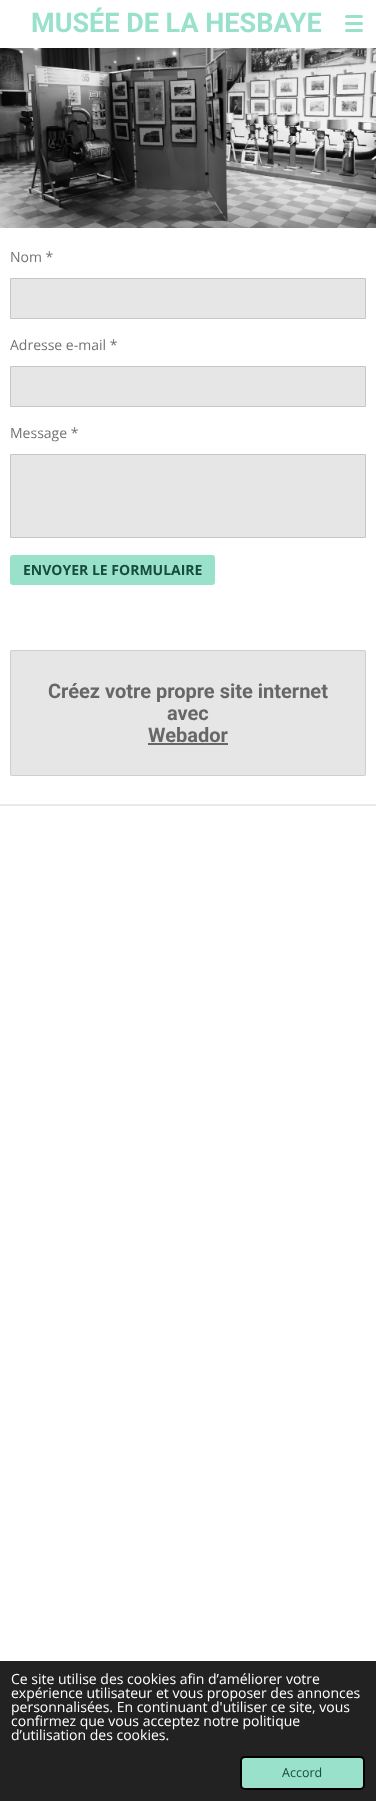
async function draw(canvas) {
  canvas.width = 376;
  canvas.height = 1801;
  const ctx = canvas.getContext('2d');
  ctx.miterLimit = 4;
  ctx.fontKerning = 'normal';
  function label(s, x, y, font, color) {
    ctx.font = font;
    ctx.fillStyle = color;
    ctx.fillText(s, x, y);
  }
  function rect(x, y, w, h, color) {
    ctx.fillStyle = color;
    ctx.fillRect(x, y, w, h);
  }
  function roundedRect(x, y, w, h, r, color) {
    ctx.fillStyle = color;
    ctx.beginPath();
    ctx.roundRect(x, y, w, h, r);
    ctx.fill();
  }
  async function image(src, x, y, w, h) {
    const img = new Image();
    img.src = src;
    await img.decode();
    ctx.drawImage(img, x, y, w, h);
  }

  rect(0, 0, 376, 1801, '#fff');
  label('MUSÉE DE LA HESBAYE', 31, 32, 'bold 27px Roboto', '#9ae1cc');
  roundedRect(345, 22, 18, 3, 1.5, '#9ae1cc');
  roundedRect(345, 15, 18, 3, 1.5, '#9ae1cc');
  roundedRect(345, 29, 18, 3, 1.5, '#9ae1cc');
  await image('assets/img1.png', 0, 48, 376, 180);
  rect(0, 804, 376, 2, '#eaeaea');
  label('Nom *', 10, 262, '14px Open Sans', '#737373');
  ctx.fillStyle = '#e6e6e6';
  ctx.beginPath();
  ctx.rect(10.5, 278.5, 355, 40);
  ctx.fill();
  ctx.strokeStyle = '#c6c6c6';
  ctx.stroke();
  label('Adresse e-mail *', 10, 350, '14px Open Sans', '#737373');
  ctx.fillStyle = '#e6e6e6';
  ctx.beginPath();
  ctx.rect(10.5, 366.5, 355, 40);
  ctx.fill();
  ctx.stroke();
  label('Message *', 10, 438, '14px Open Sans', '#737373');
  ctx.fillStyle = '#e6e6e6';
  ctx.beginPath();
  ctx.rect(10.5, 454.5, 355, 83);
  ctx.fill();
  ctx.stroke();
  roundedRect(10, 555, 205, 30, 3, '#9ae1cc');
  label('ENVOYER LE FORMULAIRE', 23, 575, 'bold 14px Open Sans', '#174c3c');
  rect(10, 650, 356, 126, '#e6e6e6');
  ctx.beginPath();
  ctx.roundRect(10.5, 650.5, 355, 125, 2.5);
  ctx.strokeStyle = '#cfcfcf';
  ctx.stroke();
  label('Créez votre propre site internet', 48, 698, 'bold 20px Roboto', '#676767');
  label('avec', 167, 720, 'bold 20px Roboto', '#676767');
  label('Webador', 148, 742, 'bold 20px Roboto', '#676767');
  rect(148, 743, 80, 2, '#676767');
  rect(0, 1661, 376, 140, '#222');
  label('Ce site utilise des cookies afin d’améliorer votre', 11, 1684, '14px Open Sans', '#fff');
  label('expérience utilisateur et vous proposer des annonces', 11, 1698, '14px Open Sans', '#fff');
  label('personnalisées. En continuant d\'utiliser ce site, vous', 11, 1712, '14px Open Sans', '#fff');
  label('confirmez que vous acceptez notre politique', 11, 1726, '14px Open Sans', '#fff');
  label('d’utilisation des cookies.', 11, 1740, '14px Open Sans', '#fff');
  ctx.fillStyle = '#9ae1cc';
  ctx.beginPath();
  ctx.roundRect(241, 1757, 123, 32, 4);
  ctx.fill();
  ctx.strokeStyle = '#000';
  ctx.lineWidth = 2;
  ctx.stroke();
  label('Accord', 282, 1777, '12.5px Open Sans', '#174c3c');
}

draw(document.querySelector('canvas'));
